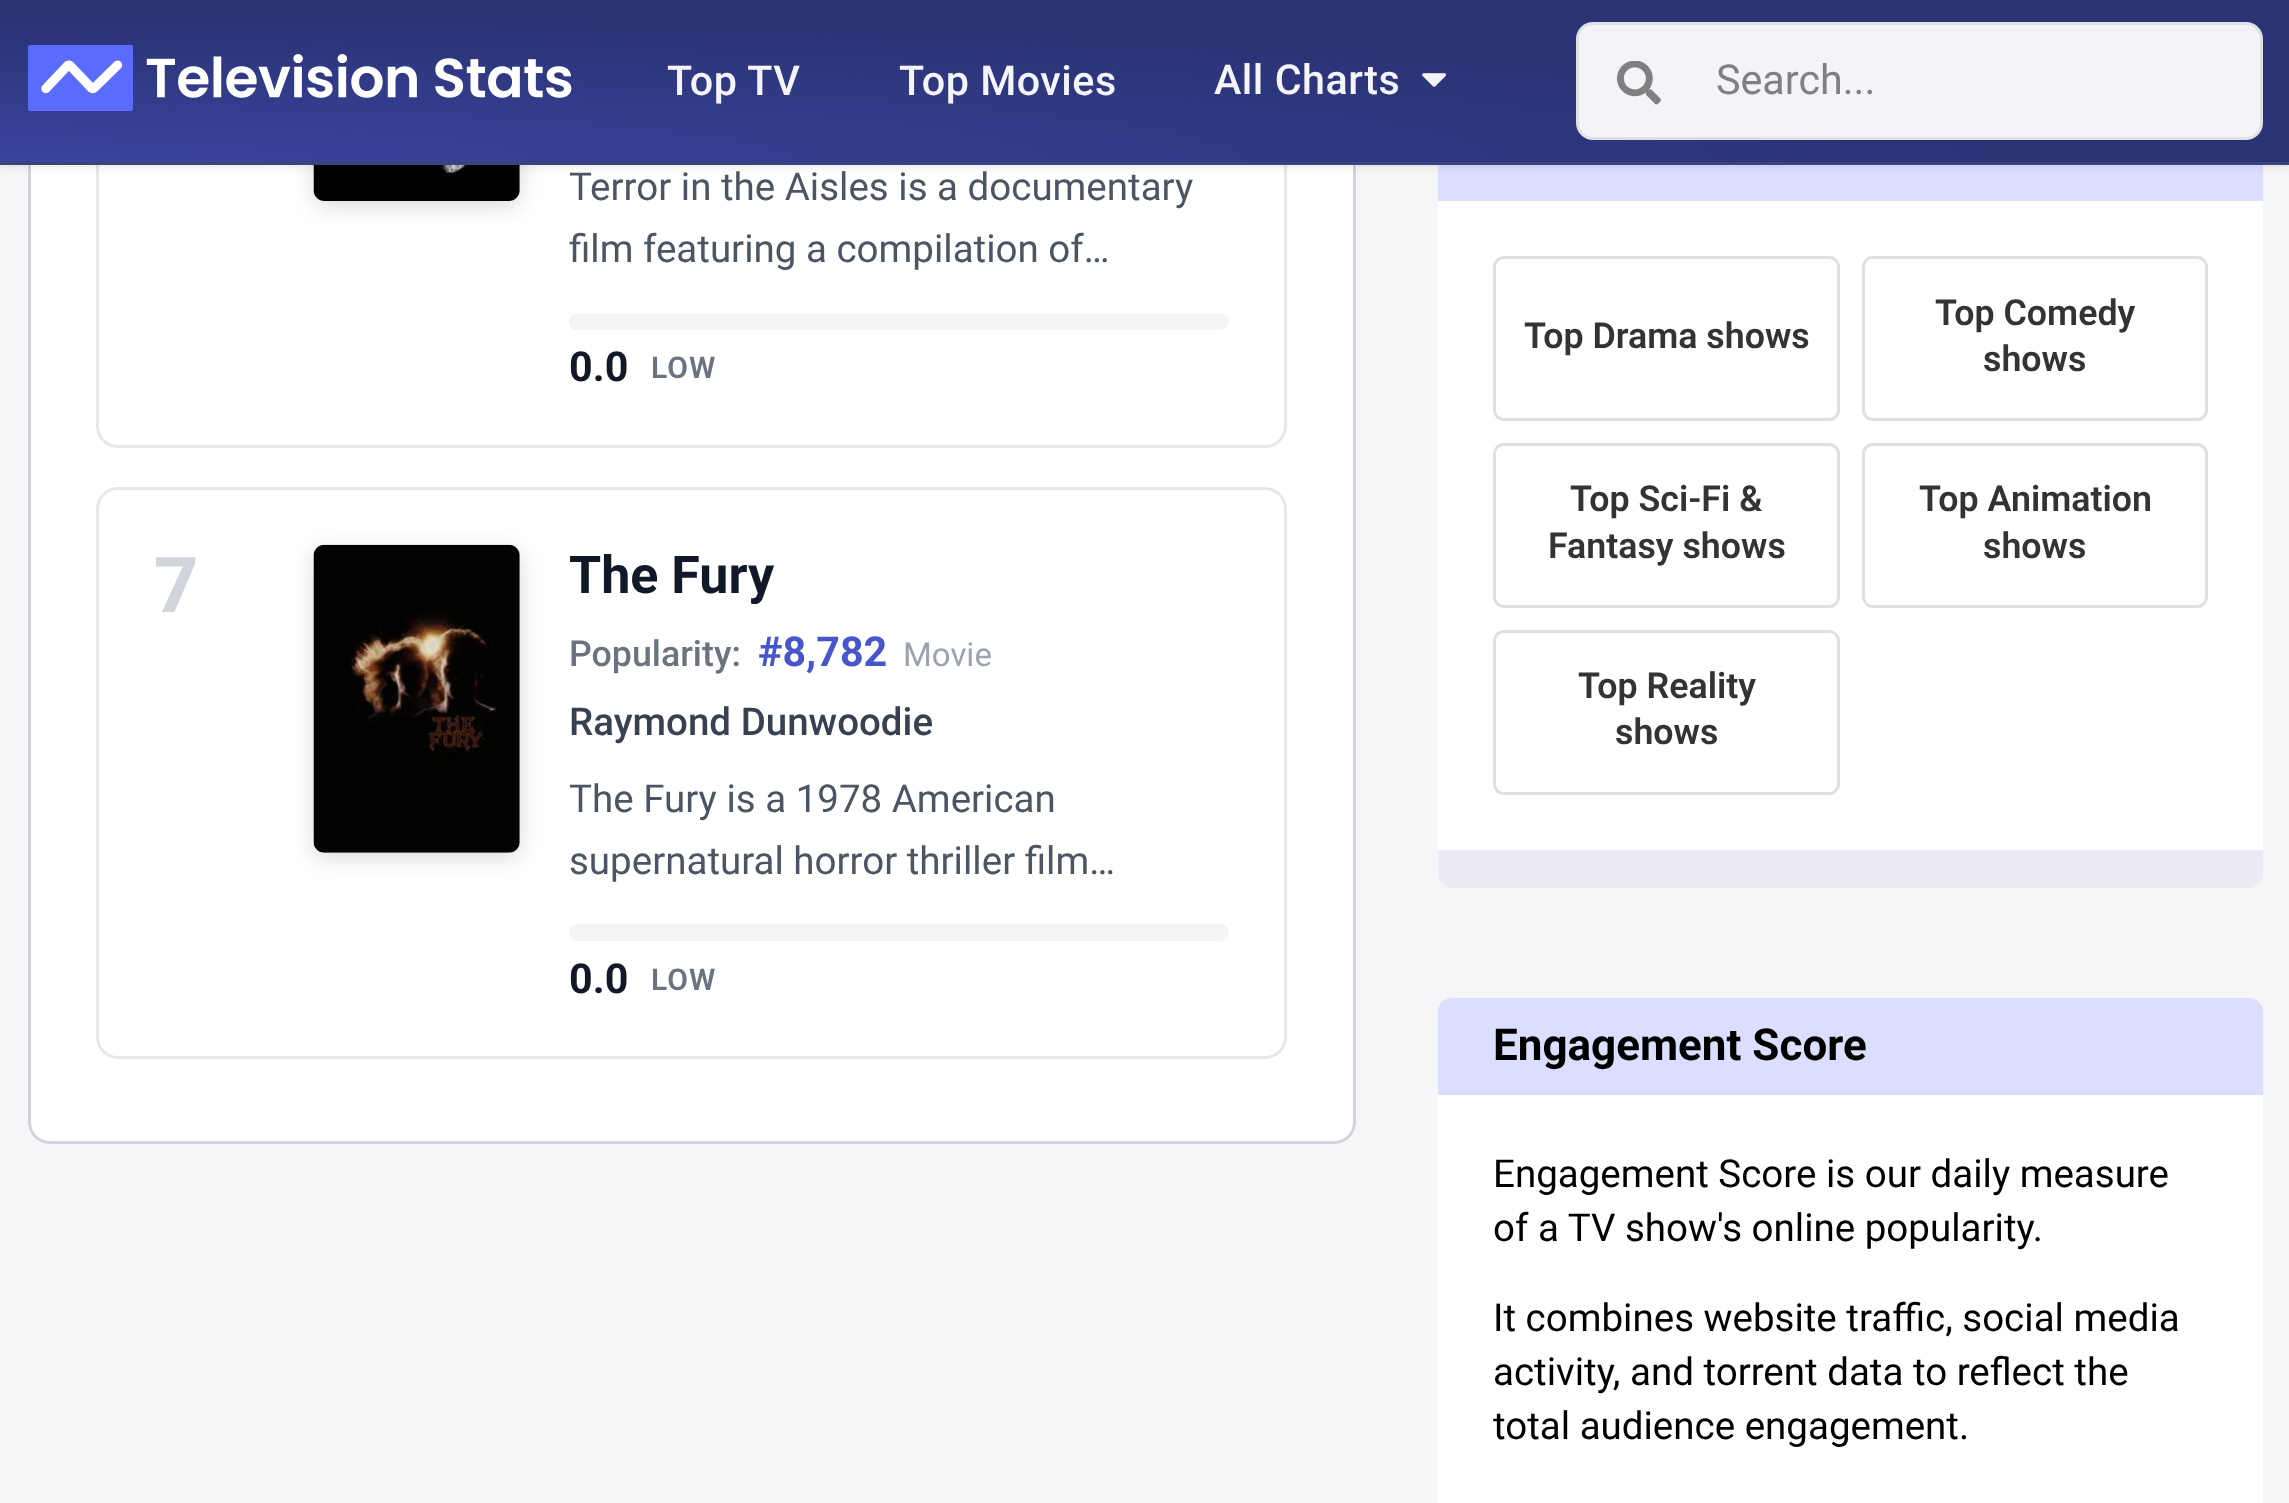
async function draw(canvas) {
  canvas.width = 2289;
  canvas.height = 1503;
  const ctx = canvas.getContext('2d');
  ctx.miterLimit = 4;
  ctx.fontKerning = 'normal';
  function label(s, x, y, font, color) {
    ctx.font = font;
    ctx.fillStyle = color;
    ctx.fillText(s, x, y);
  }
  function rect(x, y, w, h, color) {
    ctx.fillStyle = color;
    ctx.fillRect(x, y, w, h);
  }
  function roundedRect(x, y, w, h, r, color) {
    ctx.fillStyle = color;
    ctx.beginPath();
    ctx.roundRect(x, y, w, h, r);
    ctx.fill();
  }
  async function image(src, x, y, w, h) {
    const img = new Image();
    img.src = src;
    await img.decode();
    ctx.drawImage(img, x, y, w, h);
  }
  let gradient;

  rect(0, 0, 2289, 1503, '#f6f6f9');
  ctx.fillStyle = '#fff';
  ctx.beginPath();
  ctx.roundRect(29.5, -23.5, 1325, 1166, 20.5);
  ctx.fill();
  ctx.strokeStyle = '#d1d5db';
  ctx.lineWidth = 3;
  ctx.stroke();
  ctx.beginPath();
  ctx.roundRect(97.5, -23.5, 1188, 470, 20.5);
  ctx.strokeStyle = '#e5e7eb';
  ctx.stroke();
  ctx.fillStyle = '#00000026';
  ctx.filter = 'blur(11px)';
  ctx.beginPath();
  ctx.roundRect(314, -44, 206, 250, 11);
  ctx.fill();
  ctx.filter = 'none';
  await image('assets/img4.png', 313, 165, 207, 36);
  roundedRect(1438, 105, 825, 783, 14, '#fff');
  rect(1438, 165, 825, 36, '#dbdfff');
  ctx.fillStyle = '#00000014';
  ctx.filter = 'blur(4px)';
  ctx.beginPath();
  ctx.rect(0, 3, 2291, 165);
  ctx.fill();
  ctx.filter = 'none';
  gradient = ctx.createRadialGradient(0, 2287.97, 0, 0, 2287.97, 2062);
  gradient.addColorStop(0, '#39449d');
  gradient.addColorStop(1, '#2a3374');
  ctx.fillStyle = gradient;
  ctx.beginPath();
  ctx.rect(0, 0, 2289, 162);
  ctx.save();
  ctx.clip();
  ctx.scale(1, 146 / 2062);
  ctx.fillRect(0, 0, 2289, 21228);
  ctx.restore();
  rect(0, 162, 2289, 3, '#3b437e');
  await image('assets/img1.png', 28, 45, 544, 66);
  ctx.letterSpacing = '0.5px';
  label('Top TV', 667, 95, '500 41.25px Roboto', '#f5f5f9');
  label('Top Movies', 899, 95, '500 41.25px Roboto', '#f5f5f9');
  label('All Charts', 1214, 94, '500 41.25px Roboto', '#f5f5f9');
  await image('assets/img2.png', 1422, 73, 24, 14);
  roundedRect(1576, 22, 687, 118, 17, '#fffffff2');
  ctx.beginPath();
  ctx.roundRect(1577.5, 23.5, 684, 115, 15.5);
  ctx.strokeStyle = '#00000014';
  ctx.stroke();
  await image('assets/img3.png', 1617, 61, 44, 44);
  ctx.letterSpacing = '0px';
  label('Search...', 1716, 94, '41.25px Roboto', '#808080');
  label('Terror in the Aisles is a documentary', 569, 200, '38.5px Roboto', '#4b5563');
  label('film featuring a compilation of…', 569, 262, '38.5px Roboto', '#4b5563');
  roundedRect(569, 314, 660, 16, 8, '#f3f4f6');
  label('0.0', 569, 381, 'bold 41.25px Roboto', '#111827');
  ctx.letterSpacing = '1px';
  label('LOW', 651, 378, '600 30px Roboto', '#6b7280');
  ctx.beginPath();
  ctx.roundRect(97.5, 488.5, 1188, 569, 20.5);
  ctx.strokeStyle = '#e5e7eb';
  ctx.stroke();
  ctx.letterSpacing = '0px';
  label('7', 154, 612, '800 77px Roboto', '#d1d5db');
  ctx.fillStyle = '#00000026';
  ctx.filter = 'blur(11px)';
  ctx.beginPath();
  ctx.roundRect(314, 550, 206, 308, 11);
  ctx.fill();
  ctx.filter = 'none';
  await image('assets/img5.png', 313, 544, 207, 309);
  label('The Fury', 569, 593, 'bold 52px Roboto', '#111827');
  label('Popularity:', 569, 666, '500 35.75px Roboto', '#6b7280');
  label('#8,782', 758, 666, 'bold 41.25px Roboto', '#4756ca');
  label('Movie', 903, 666, '33px Roboto', '#9ca3af');
  label('Raymond Dunwoodie', 569, 735, '500 38.5px Roboto', '#374151');
  label('The Fury is a 1978 American', 569, 812, '38.5px Roboto', '#4b5563');
  label('supernatural horror thriller film…', 569, 874, '38.5px Roboto', '#4b5563');
  roundedRect(569, 924, 660, 17, 8.5, '#f3f4f6');
  label('0.0', 569, 993, 'bold 41.25px Roboto', '#111827');
  ctx.letterSpacing = '1px';
  label('LOW', 651, 990, '600 30px Roboto', '#6b7280');
  ctx.beginPath();
  ctx.roundRect(1494.5, 257.5, 344, 162, 9.5);
  ctx.strokeStyle = '#e0e0e0';
  ctx.stroke();
  ctx.letterSpacing = '0px';
  label('Top Drama shows', 1524, 348, '600 35.75px Roboto', '#333');
  ctx.beginPath();
  ctx.roundRect(1863.5, 257.5, 343, 162, 9.5);
  ctx.stroke();
  label('Top Comedy', 1935, 325, '600 35.75px Roboto', '#333');
  label('shows', 1983, 371, '600 35.75px Roboto', '#333');
  ctx.beginPath();
  ctx.roundRect(1494.5, 444.5, 344, 162, 9.5);
  ctx.stroke();
  label('Top Sci-Fi &', 1570, 511, '600 35.75px Roboto', '#333');
  label('Fantasy shows', 1548, 558, '600 35.75px Roboto', '#333');
  ctx.beginPath();
  ctx.roundRect(1863.5, 444.5, 343, 162, 9.5);
  ctx.stroke();
  label('Top Animation', 1919, 511, '600 35.75px Roboto', '#333');
  label('shows', 1983, 558, '600 35.75px Roboto', '#333');
  ctx.beginPath();
  ctx.roundRect(1494.5, 631.5, 344, 162, 9.5);
  ctx.stroke();
  label('Top Reality', 1578, 698, '600 35.75px Roboto', '#333');
  label('shows', 1615, 744, '600 35.75px Roboto', '#333');
  ctx.fillStyle = '#eaebf5';
  ctx.beginPath();
  ctx.roundRect(1438, 850, 825, 38, [0, 0, 14, 14]);
  ctx.fill();
  roundedRect(1438, 998, 825, 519, 14, '#fff');
  ctx.fillStyle = '#dbdfff';
  ctx.beginPath();
  ctx.roundRect(1438, 998, 825, 97, [14, 14, 0, 0]);
  ctx.fill();
  label('Engagement Score', 1493, 1060, 'bold 44px Roboto', '#000');
  label('Engagement Score is our daily measure', 1493, 1187, '38.5px Roboto', '#000');
  label('of a TV show\'s online popularity.', 1493, 1241, '38.5px Roboto', '#000');
  label('It combines website traffic, social media', 1493, 1331, '38.5px Roboto', '#000');
  label('activity, and torrent data to reflect the', 1493, 1385, '38.5px Roboto', '#000');
  label('total audience engagement.', 1493, 1439, '38.5px Roboto', '#000');
}

draw(document.querySelector('canvas'));
